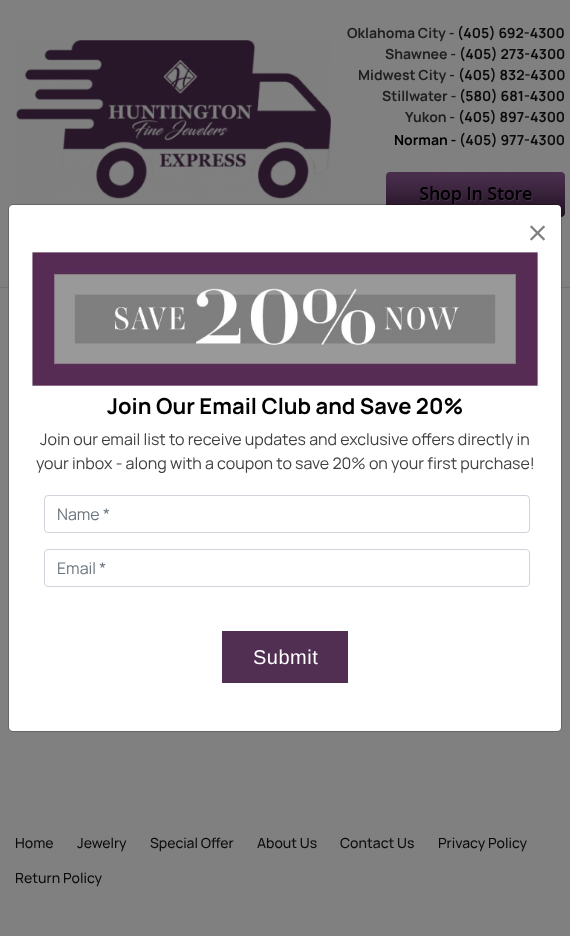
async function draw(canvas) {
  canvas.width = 570;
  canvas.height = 936;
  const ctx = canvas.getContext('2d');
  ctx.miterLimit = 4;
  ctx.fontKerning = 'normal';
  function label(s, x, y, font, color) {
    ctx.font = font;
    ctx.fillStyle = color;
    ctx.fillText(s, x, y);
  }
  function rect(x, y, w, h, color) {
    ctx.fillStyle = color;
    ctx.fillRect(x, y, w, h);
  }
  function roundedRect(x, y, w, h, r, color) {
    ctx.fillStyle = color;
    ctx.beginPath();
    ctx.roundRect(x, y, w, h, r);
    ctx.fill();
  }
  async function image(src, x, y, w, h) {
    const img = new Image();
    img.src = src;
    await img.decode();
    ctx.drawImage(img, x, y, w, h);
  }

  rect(0, 0, 570, 936, '#808080');
  rect(0, 287, 570, 1, '#737373');
  await image('assets/img1.png', 16, 40, 315, 159);
  label('Oklahoma City -', 347, 38, 'bold 14px Manrope', '#202020');
  label('(405) 692-4300', 457, 38, 'bold 14px Manrope', '#0b0b0b');
  label('Shawnee -', 385, 59, 'bold 14px Manrope', '#202020');
  label('(405) 273-4300', 459, 59, 'bold 14px Manrope', '#0b0b0b');
  label('Midwest City -', 358, 80, 'bold 14px Manrope', '#202020');
  label('(405) 832-4300', 458, 80, 'bold 14px Manrope', '#0b0b0b');
  label('Stillwater -', 382, 101, 'bold 14px Manrope', '#202020');
  label('(580) 681-4300', 459, 101, 'bold 14px Manrope', '#0b0b0b');
  label('Yukon -', 405, 122, 'bold 14px Manrope', '#202020');
  label('(405) 897-4300', 458, 122, 'bold 14px Manrope', '#0b0b0b');
  label('Norman -', 394, 145, 'bold 14px Manrope', '#000');
  label('(405) 977-4300', 459, 145, 'bold 14px Manrope', '#0b0b0b');
  await image('assets/img2.png', 386, 172, 179, 45);
  roundedRect(9, 205, 552, 526, 4, '#fff');
  ctx.beginPath();
  ctx.roundRect(8.5, 204.5, 553, 527, 4.5);
  ctx.strokeStyle = '#00000033';
  ctx.stroke();
  await image('assets/img3.png', 530, 225, 15, 16);
  await image('assets/img4.png', 31, 251, 511, 136);
  label('Join Our Email Club and Save 20%', 107, 414, 'bold 22px Manrope', '#000');
  label('Join our email list to receive updates and exclusive offers directly in', 40, 445, '16px Manrope', '#404040');
  label('your inbox - along with a coupon to save 20% on your first purchase!', 36, 469, '16px Manrope', '#404040');
  ctx.beginPath();
  ctx.roundRect(44.5, 495.5, 485, 37, 3.5);
  ctx.strokeStyle = '#ced4da';
  ctx.stroke();
  label('Name *', 57, 520, '16px Manrope', '#6c757d');
  ctx.beginPath();
  ctx.roundRect(44.5, 549.5, 485, 37, 3.5);
  ctx.stroke();
  label('Email *', 57, 574, '16px Manrope', '#6c757d');
  rect(222, 631, 126, 52, '#502f53');
  ctx.letterSpacing = '0.5px';
  label('Submit', 253, 664, '20px Liberation Sans', '#fff');
  ctx.letterSpacing = '0px';
  label('Home', 15, 848, '500 14px Manrope', '#0b0b0b');
  label('Jewelry', 77, 848, '500 14px Manrope', '#0b0b0b');
  label('Special Offer', 150, 848, '500 14px Manrope', '#0b0b0b');
  label('About Us', 257, 848, '500 14px Manrope', '#0b0b0b');
  label('Contact Us', 340, 848, '500 14px Manrope', '#0b0b0b');
  label('Privacy Policy', 438, 848, '500 14px Manrope', '#0b0b0b');
  label('Return Policy', 15, 883, '500 14px Manrope', '#0b0b0b');
}

draw(document.querySelector('canvas'));
